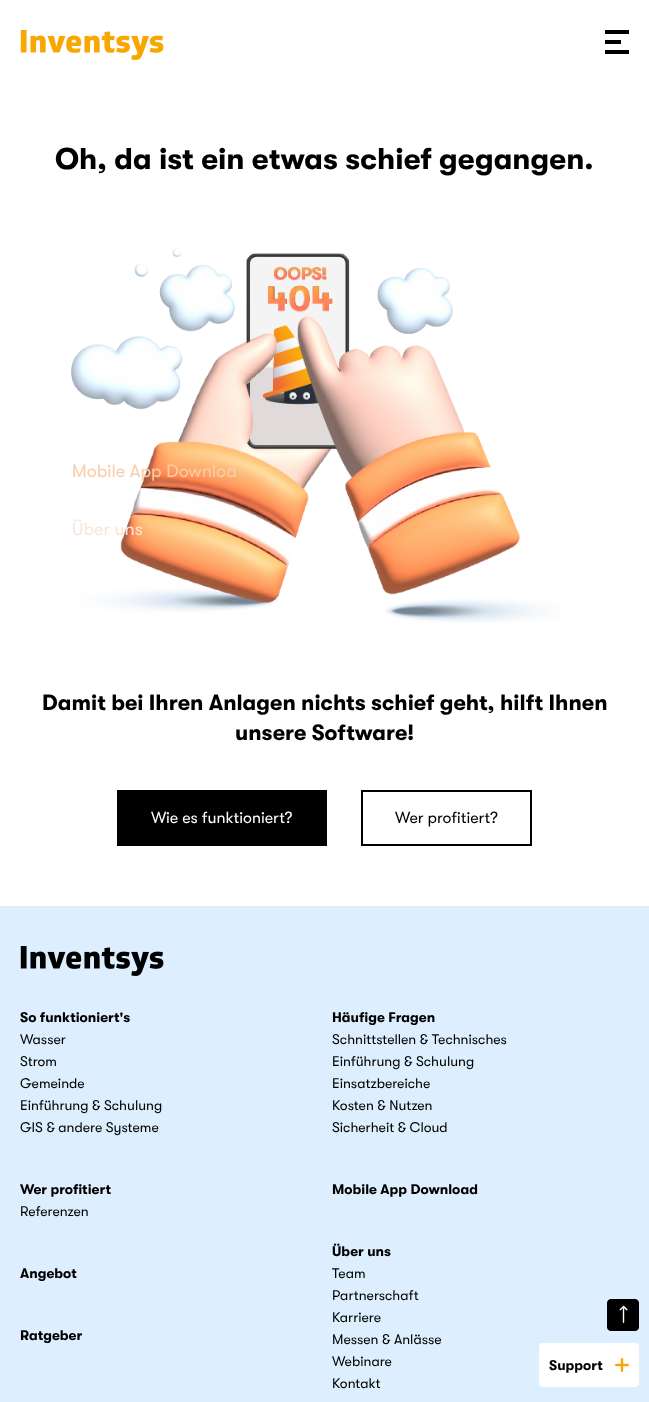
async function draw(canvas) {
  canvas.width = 649;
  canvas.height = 1402;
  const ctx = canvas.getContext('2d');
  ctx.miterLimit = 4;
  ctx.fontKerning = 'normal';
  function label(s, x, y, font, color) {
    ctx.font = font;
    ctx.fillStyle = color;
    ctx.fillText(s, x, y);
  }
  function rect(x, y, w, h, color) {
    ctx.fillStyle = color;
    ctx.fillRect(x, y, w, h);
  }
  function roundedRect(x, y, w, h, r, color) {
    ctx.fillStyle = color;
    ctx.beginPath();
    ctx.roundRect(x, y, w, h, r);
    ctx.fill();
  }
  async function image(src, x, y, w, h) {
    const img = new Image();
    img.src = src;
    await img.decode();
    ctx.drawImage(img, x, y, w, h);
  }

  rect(0, 0, 649, 1402, '#fff');
  label('Oh, da ist ein etwas schief gegangen.', 55, 169, 'bold 30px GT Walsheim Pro', '#000');
  await image('assets/img1.png', 71, 248, 489, 375);
  label('Damit bei Ihren Anlagen nichts schief geht, hilft Ihnen', 42, 710, 'bold 22px GT Walsheim Pro', '#000');
  label('unsere Software!', 235, 740, 'bold 22px GT Walsheim Pro', '#000');
  rect(117, 790, 210, 56, '#000');
  label('Wie es funktioniert?', 151, 823, '16px GT Walsheim Pro', '#fff');
  ctx.strokeStyle = '#000';
  ctx.lineWidth = 2;
  ctx.strokeRect(362, 791, 169, 54);
  label('Wer profitiert?', 395, 823, '16px GT Walsheim Pro', '#000');
  await image('assets/img2.png', 20, 30, 144, 30);
  rect(605, 40, 16, 4, '#000');
  rect(605, 30, 24, 4, '#000');
  rect(605, 50, 24, 4, '#000');
  label('Mobile App Downloa', 72, 477, '18px GT Walsheim Pro', '#fbccab');
  label('Über uns', 72, 535, '18px GT Walsheim Pro', '#fae5d8');
  rect(0, 906, 649, 496, '#ddefff');
  await image('assets/img3.png', 20, 946, 144, 30);
  label('So funktioniert\'s', 20, 1022, 'bold 14px GT Walsheim Pro', '#000');
  label('Wasser', 20, 1044, '14px GT Walsheim Pro', '#000');
  label('Strom', 20, 1066, '14px GT Walsheim Pro', '#000');
  label('Gemeinde', 20, 1088, '14px GT Walsheim Pro', '#000');
  label('Einführung & Schulung', 20, 1110, '14px GT Walsheim Pro', '#000');
  label('GIS & andere Systeme', 20, 1132, '14px GT Walsheim Pro', '#000');
  label('Häufige Fragen', 332, 1022, 'bold 14px GT Walsheim Pro', '#000');
  label('Schnittstellen & Technisches', 332, 1044, '14px GT Walsheim Pro', '#000');
  label('Einführung & Schulung', 332, 1066, '14px GT Walsheim Pro', '#000');
  label('Einsatzbereiche', 332, 1088, '14px GT Walsheim Pro', '#000');
  label('Kosten & Nutzen', 332, 1110, '14px GT Walsheim Pro', '#000');
  label('Sicherheit & Cloud', 332, 1132, '14px GT Walsheim Pro', '#000');
  label('Wer profitiert', 20, 1194, 'bold 14px GT Walsheim Pro', '#000');
  label('Referenzen', 20, 1216, '14px GT Walsheim Pro', '#000');
  label('Mobile App Download', 332, 1194, 'bold 14px GT Walsheim Pro', '#000');
  label('Angebot', 20, 1278, 'bold 14px GT Walsheim Pro', '#000');
  label('Über uns', 332, 1256, 'bold 14px GT Walsheim Pro', '#000');
  label('Team', 332, 1278, '14px GT Walsheim Pro', '#000');
  label('Partnerschaft', 332, 1300, '14px GT Walsheim Pro', '#000');
  label('Karriere', 332, 1322, '14px GT Walsheim Pro', '#000');
  label('Messen & Anlässe', 332, 1344, '14px GT Walsheim Pro', '#000');
  label('Webinare', 332, 1366, '14px GT Walsheim Pro', '#000');
  label('Kontakt', 332, 1388, '14px GT Walsheim Pro', '#000');
  label('Ratgeber', 20, 1340, 'bold 14px GT Walsheim Pro', '#000');
  await image('assets/img4.png', 607, 1299, 32, 32);
  roundedRect(539, 1343, 100, 44, 4, '#fff');
  label('Support', 549, 1370, 'bold 14px GT Walsheim Pro', '#000');
  await image('assets/img5.png', 615, 1358, 14, 14);
}

draw(document.querySelector('canvas'));
